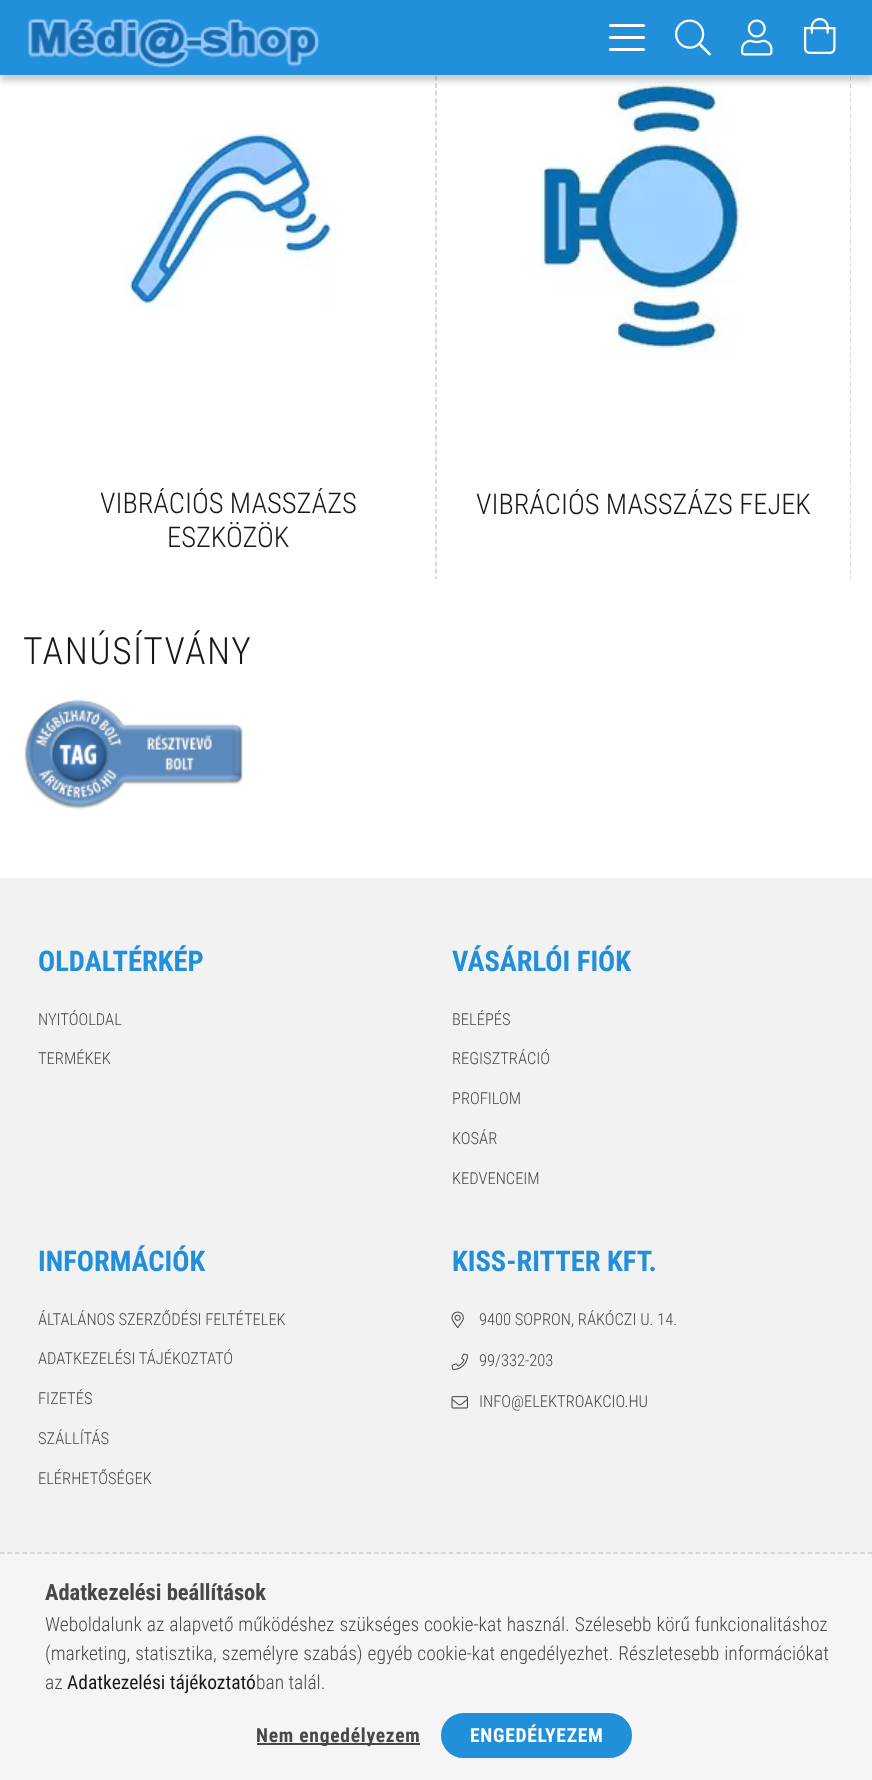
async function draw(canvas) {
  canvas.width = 872;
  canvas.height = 1780;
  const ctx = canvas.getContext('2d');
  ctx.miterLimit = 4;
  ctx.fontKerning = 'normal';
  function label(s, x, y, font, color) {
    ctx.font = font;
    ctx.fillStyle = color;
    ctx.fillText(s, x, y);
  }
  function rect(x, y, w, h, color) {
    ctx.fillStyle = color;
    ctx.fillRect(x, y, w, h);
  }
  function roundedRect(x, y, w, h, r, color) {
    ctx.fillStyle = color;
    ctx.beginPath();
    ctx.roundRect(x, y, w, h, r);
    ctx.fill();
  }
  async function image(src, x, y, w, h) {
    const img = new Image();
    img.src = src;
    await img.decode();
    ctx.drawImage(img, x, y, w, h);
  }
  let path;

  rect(0, 0, 872, 1780, '#fff');
  ctx.save();
  ctx.beginPath();
  ctx.rect(23, 0, 828, 579);
  ctx.clip();
  path = new Path2D('M436-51V580.5');
  ctx.strokeStyle = '#ccc';
  ctx.lineWidth = 1.5;
  ctx.setLineDash([4.5, 2.97]);
  ctx.stroke(path);
  path = new Path2D('M851-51V580.5');
  ctx.stroke(path);
  ctx.restore();
  await image('assets/img6.png', 539, 81, 209, 273);
  ctx.fillStyle = '#00000033';
  ctx.filter = 'blur(3px)';
  ctx.beginPath();
  ctx.rect(0, 6, 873, 75);
  ctx.fill();
  ctx.filter = 'none';
  rect(0, 0, 872, 75, '#218fd9');
  await image('assets/img1.png', 28, 19, 292, 49);
  roundedRect(609, 24, 36, 3, 1.5, '#fff');
  roundedRect(609, 36, 36, 3, 1.5, '#fff');
  roundedRect(609, 48, 36, 3, 1.5, '#fff');
  await image('assets/img2.png', 675, 19, 36, 37);
  await image('assets/img3.png', 741, 19, 32, 37);
  await image('assets/img4.png', 804, 18, 32, 36);
  await image('assets/img5.png', 125, 133, 208, 175);
  ctx.save();
  ctx.beginPath();
  ctx.rect(44, 488, 369, 69);
  ctx.clip();
  label('VIBRÁCIÓS MASSZÁZS', 100, 513, '300 28.5px Roboto Condensed', '#181818');
  ctx.restore();
  label('ESZKÖZÖK', 167, 547, '300 28.5px Roboto Condensed', '#181818');
  ctx.save();
  ctx.beginPath();
  ctx.rect(476, 489, 336, 33);
  ctx.clip();
  label('VIBRÁCIÓS MASSZÁZS FEJEK', 476, 514, '300 28.5px Roboto Condensed', '#181818');
  ctx.restore();
  ctx.letterSpacing = '1.5px';
  label('TANÚSÍTVÁNY', 23, 664, '300 37.5px Roboto Condensed', '#181818');
  await image('assets/img7.png', 24, 699, 219, 111);
  rect(0, 878, 872, 675, '#f2f2f2');
  ctx.letterSpacing = '0px';
  label('OLDALTÉRKÉP', 38, 971, 'bold 28.5px Roboto Condensed', '#218fd9');
  label('NYITÓOLDAL', 38, 1025, '300 16.5px Roboto Condensed', '#484848');
  label('TERMÉKEK', 38, 1064, '300 16.5px Roboto Condensed', '#484848');
  label('VÁSÁRLÓI FIÓK', 452, 971, 'bold 28.5px Roboto Condensed', '#218fd9');
  label('BELÉPÉS', 452, 1025, '300 16.5px Roboto Condensed', '#484848');
  label('REGISZTRÁCIÓ', 452, 1064, '300 16.5px Roboto Condensed', '#484848');
  label('PROFILOM', 452, 1104, '300 16.5px Roboto Condensed', '#484848');
  label('KOSÁR', 452, 1144, '300 16.5px Roboto Condensed', '#484848');
  label('KEDVENCEIM', 452, 1184, '300 16.5px Roboto Condensed', '#484848');
  label('INFORMÁCIÓK', 38, 1271, 'bold 28.5px Roboto Condensed', '#218fd9');
  label('ÁLTALÁNOS SZERZŐDÉSI FELTÉTELEK', 38, 1325, '300 16.5px Roboto Condensed', '#484848');
  label('ADATKEZELÉSI TÁJÉKOZTATÓ', 38, 1364, '300 16.5px Roboto Condensed', '#484848');
  label('FIZETÉS', 38, 1404, '300 16.5px Roboto Condensed', '#484848');
  label('SZÁLLÍTÁS', 38, 1444, '300 16.5px Roboto Condensed', '#484848');
  label('ELÉRHETŐSÉGEK', 38, 1484, '300 16.5px Roboto Condensed', '#484848');
  label('KISS-RITTER KFT.', 452, 1271, 'bold 28.5px Roboto Condensed', '#218fd9');
  await image('assets/img8.png', 451, 1311, 13, 17);
  label('9400 SOPRON, RÁKÓCZI U. 14.', 479, 1325, '300 16.5px Roboto Condensed', '#484848');
  await image('assets/img9.png', 451, 1353, 17, 18);
  label('99/332-203', 479, 1366, '300 16.5px Roboto Condensed', '#484848');
  await image('assets/img10.png', 451, 1396, 17, 13);
  label('INFO@ELEKTROAKCIO.HU', 479, 1407, '300 16.5px Roboto Condensed', '#484848');
  rect(0, 1553, 872, 227, '#f5f5f5');
  path = new Path2D('M0 1553H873');
  ctx.strokeStyle = '#ccc';
  ctx.lineWidth = 1.5;
  ctx.setLineDash([4.5, 2.98]);
  ctx.stroke(path);
  label('Adatkezelési beállítások', 45, 1600, 'bold 22.5px Roboto Condensed', '#484848');
  ctx.wordSpacing = '0.5px';
  label('Weboldalunk az alapvető működéshez szükséges cookie-kat használ. Szélesebb körű funkcionalitáshoz', 45, 1631, '300 19.5px Roboto Condensed', '#484848');
  label('(marketing, statisztika, személyre szabás) egyéb cookie-kat engedélyezhet. Részletesebb információkat', 45, 1660, '300 19.5px Roboto Condensed', '#484848');
  ctx.wordSpacing = '0px';
  label('az', 45, 1689, '300 19.5px Roboto Condensed', '#484848');
  label('Adatkezelési tájékoztató', 67, 1689, '19.5px Roboto Condensed', '#181818');
  label('ban talál.', 256, 1689, '300 19.5px Roboto Condensed', '#484848');
  rect(257, 1743, 163, 2, '#484848');
  ctx.letterSpacing = '0.75px';
  label('Nem engedélyezem', 256, 1742, 'bold 19.5px Roboto Condensed', '#484848');
  ctx.fillStyle = '#218fd9';
  ctx.beginPath();
  ctx.roundRect(442, 1714, 189, 43, 21.5);
  ctx.fill();
  ctx.strokeStyle = '#218fd9';
  ctx.lineWidth = 2;
  ctx.setLineDash([]);
  ctx.stroke();
  label('ENGEDÉLYEZEM', 470, 1742, 'bold 19.5px Roboto Condensed', '#fff');
}

draw(document.querySelector('canvas'));
